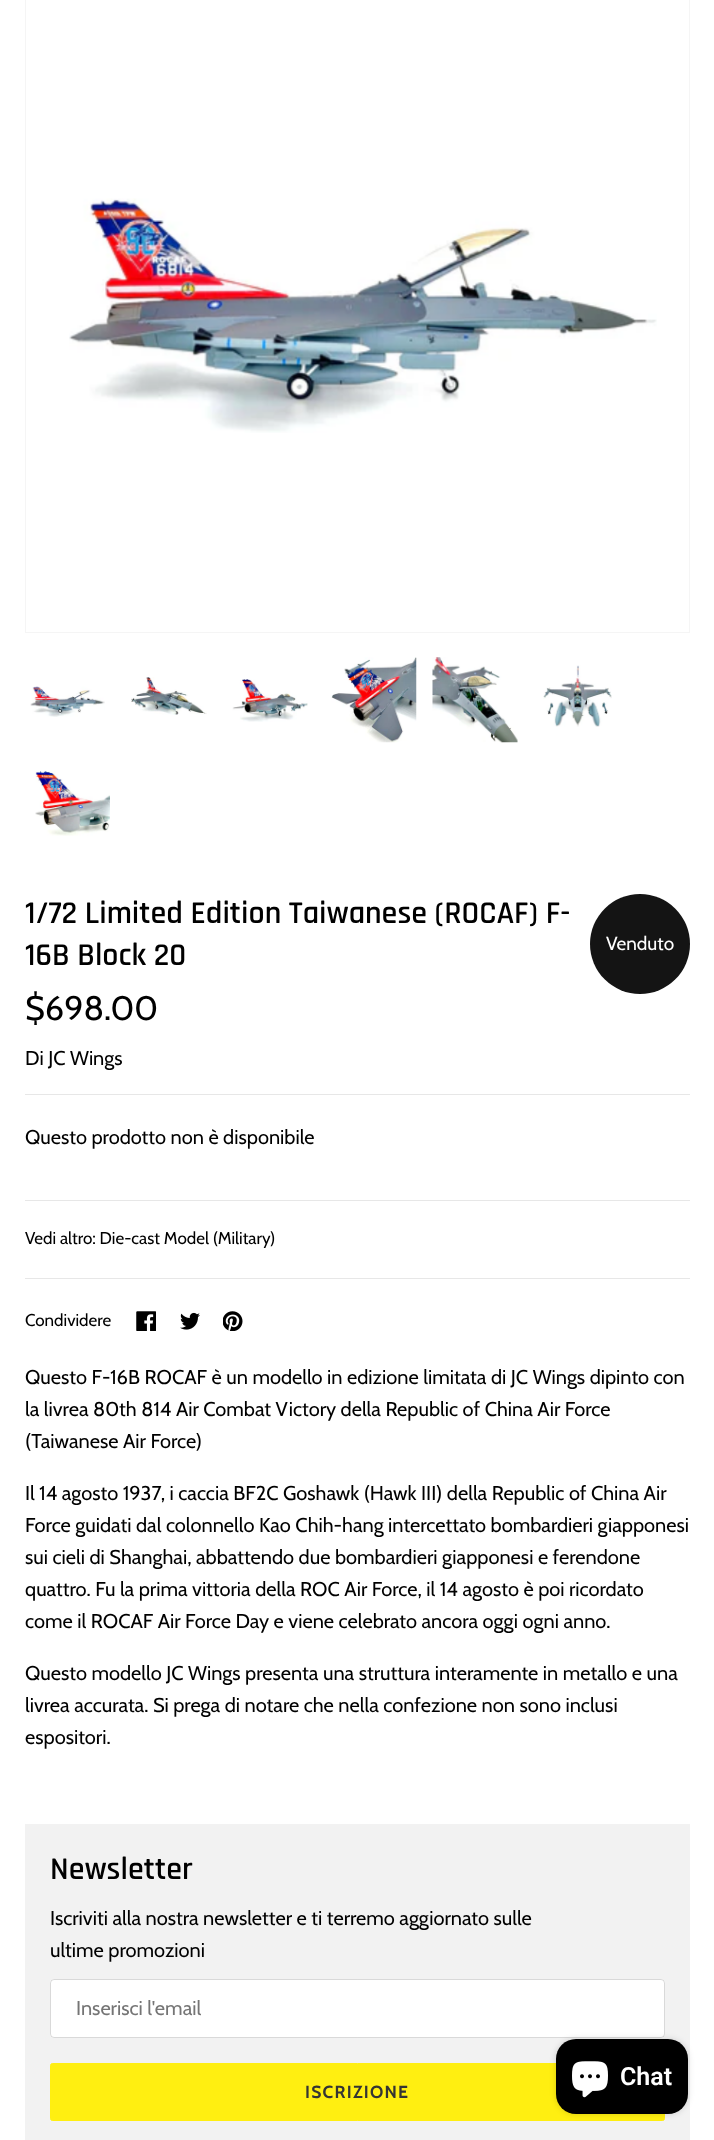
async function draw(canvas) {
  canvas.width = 714;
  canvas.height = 2140;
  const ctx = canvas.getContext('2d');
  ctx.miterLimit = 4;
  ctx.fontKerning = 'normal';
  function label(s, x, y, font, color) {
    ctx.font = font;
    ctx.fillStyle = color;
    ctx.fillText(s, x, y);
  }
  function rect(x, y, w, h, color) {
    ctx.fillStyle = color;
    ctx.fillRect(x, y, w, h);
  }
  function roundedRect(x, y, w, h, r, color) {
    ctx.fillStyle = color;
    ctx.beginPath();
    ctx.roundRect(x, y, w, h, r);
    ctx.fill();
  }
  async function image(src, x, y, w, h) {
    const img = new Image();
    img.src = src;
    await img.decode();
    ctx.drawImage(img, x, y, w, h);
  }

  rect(0, 0, 714, 2140, '#fff');
  ctx.strokeStyle = '#f5f5f5';
  ctx.strokeRect(25.5, -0.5, 664, 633);
  await image('assets/img1.png', 69, 198, 588, 235);
  await image('assets/img2.png', 30, 686, 75, 31);
  await image('assets/img3.png', 131, 677, 76, 38);
  await image('assets/img4.png', 232, 679, 76, 43);
  await image('assets/img5.png', 331, 657, 86, 86);
  await image('assets/img6.png', 432, 657, 86, 86);
  await image('assets/img7.png', 543, 665, 69, 62);
  await image('assets/img8.png', 35, 771, 75, 65);
  label('1/72 Limited Edition Taiwanese (ROCAF) F-', 25, 923, '600 32px Rajdhani', '#000');
  label('16B Block 20', 25, 965, '600 32px Rajdhani', '#000');
  ctx.fillStyle = '#141414';
  ctx.beginPath();
  ctx.arc(640, 944, 50, 0, 2 * Math.PI);
  ctx.fill();
  label('Venduto', 606, 950, '19px Cabin', '#fff');
  label('$698.00', 25, 1020, '34px Cabin', '#000');
  label('Di JC Wings', 25, 1065, '20px Cabin', '#000');
  rect(25, 1094, 665, 1, '#e7e7e7');
  label('Questo prodotto non è disponibile', 25, 1144, '20px Cabin', '#000');
  rect(25, 1200, 665, 1, '#e7e7e7');
  label('Vedi altro: Die-cast Model (Military)', 25, 1244, '17px Cabin', '#000');
  rect(25, 1278, 665, 1, '#e7e7e7');
  label('Condividere', 25, 1326, '17px Cabin', '#000');
  await image('assets/img9.png', 136, 1311, 20, 20);
  await image('assets/img10.png', 180, 1312, 20, 18);
  await image('assets/img11.png', 223, 1311, 20, 20);
  label('Questo F-16B ROCAF è un modello in edizione limitata di JC Wings dipinto con', 25, 1384, '20px Cabin', '#000');
  label('la livrea 80th 814 Air Combat Victory della Republic of China Air Force', 25, 1416, '20px Cabin', '#000');
  label('(Taiwanese Air Force)', 25, 1448, '20px Cabin', '#000');
  label('Il 14 agosto 1937, i caccia BF2C Goshawk (Hawk III) della Republic of China Air', 25, 1500, '20px Cabin', '#000');
  label('Force guidati dal colonnello Kao Chih-hang intercettato bombardieri giapponesi', 25, 1532, '20px Cabin', '#000');
  label('sui cieli di Shanghai, abbattendo due bombardieri giapponesi e ferendone', 25, 1564, '20px Cabin', '#000');
  label('quattro. Fu la prima vittoria della ROC Air Force, il 14 agosto è poi ricordato', 25, 1596, '20px Cabin', '#000');
  label('come il ROCAF Air Force Day e viene celebrato ancora oggi ogni anno.', 25, 1628, '20px Cabin', '#000');
  label('Questo modello JC Wings presenta una struttura interamente in metallo e una', 25, 1680, '20px Cabin', '#000');
  label('livrea accurata. Si prega di notare che nella confezione non sono inclusi', 25, 1712, '20px Cabin', '#000');
  label('espositori.', 25, 1744, '20px Cabin', '#000');
  rect(25, 1824, 665, 316, '#f2f2f2');
  label('Newsletter', 50, 1879, '600 32px Rajdhani', '#000');
  label('Iscriviti alla nostra newsletter e ti terremo aggiornato sulle', 50, 1925, '20px Cabin', '#000');
  label('ultime promozioni', 50, 1957, '20px Cabin', '#000');
  roundedRect(50, 1979, 615, 59, 4, '#fff');
  ctx.beginPath();
  ctx.roundRect(50.5, 1979.5, 614, 58, 3.5);
  ctx.strokeStyle = '#00000026';
  ctx.stroke();
  label('Inserisci l\'email', 76, 2015, '20px Cabin', '#757575');
  ctx.fillStyle = '#ffef11';
  ctx.beginPath();
  ctx.roundRect(50.5, 2063.5, 614, 57, 2);
  ctx.fill();
  ctx.strokeStyle = '#ffef11';
  ctx.stroke();
  ctx.letterSpacing = '1.25px';
  label('ISCRIZIONE', 305, 2098, 'bold 17.5px Cabin', '#343434');
  ctx.fillStyle = '#00000026';
  ctx.filter = 'blur(3px)';
  ctx.beginPath();
  ctx.roundRect(556, 2039, 132, 75, 20);
  ctx.fill();
  ctx.filter = 'none';
  roundedRect(556, 2039, 132, 75, 20, '#000');
  await image('assets/img12.png', 572, 2061, 36, 37);
  ctx.letterSpacing = '0px';
  label('Chat', 620, 2085, '600 25px Roboto', '#fff');
}

draw(document.querySelector('canvas'));
